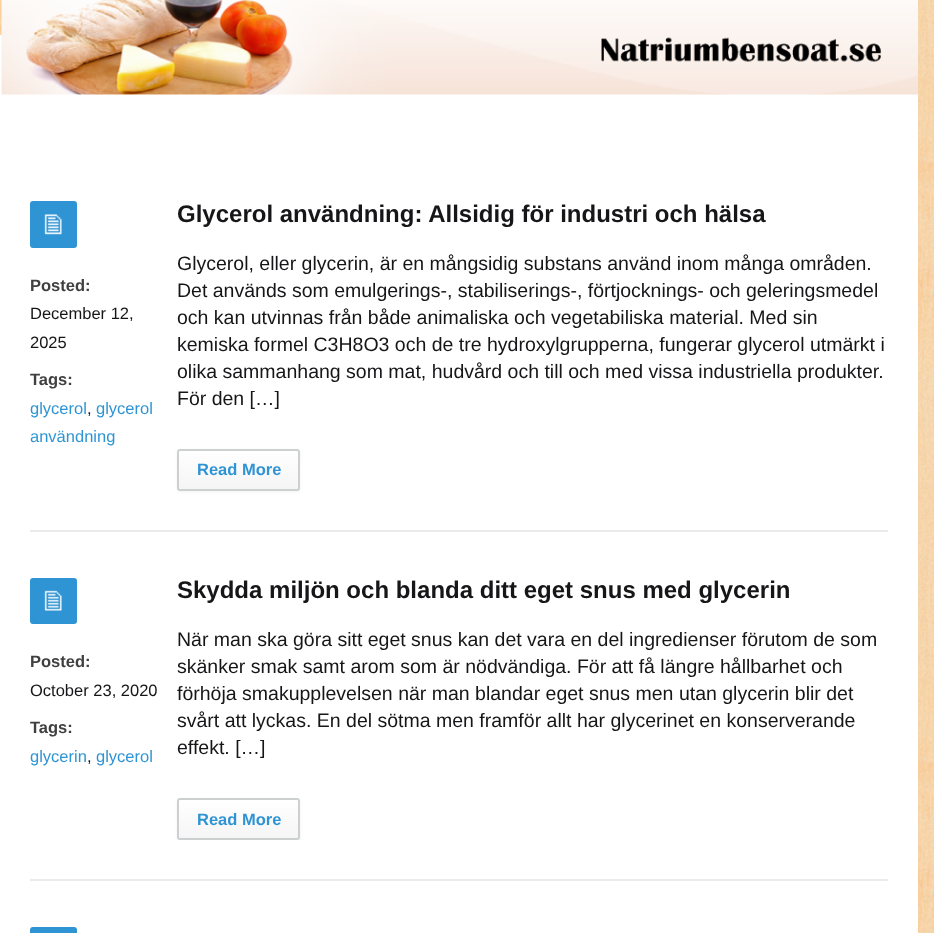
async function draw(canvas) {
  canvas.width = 934;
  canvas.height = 933;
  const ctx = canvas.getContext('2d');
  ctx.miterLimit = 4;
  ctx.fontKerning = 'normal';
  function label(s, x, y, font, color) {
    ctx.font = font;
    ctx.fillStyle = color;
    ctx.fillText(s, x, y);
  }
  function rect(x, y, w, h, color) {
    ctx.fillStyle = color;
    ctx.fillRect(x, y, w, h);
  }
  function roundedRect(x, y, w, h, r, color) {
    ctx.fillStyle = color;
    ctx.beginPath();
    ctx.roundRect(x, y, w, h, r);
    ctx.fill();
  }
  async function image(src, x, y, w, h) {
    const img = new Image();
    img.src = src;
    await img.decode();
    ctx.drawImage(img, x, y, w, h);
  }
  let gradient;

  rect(0, 0, 934, 933, '#fff');
  await image('assets/img1.png', 0, 0, 934, 933);
  rect(0, 35, 918, 898, '#fff');
  await image('assets/img2.png', 1, 0, 917, 95);
  roundedRect(30, 201, 47, 47, 3, '#2f94d4');
  await image('assets/img3.png', 44, 214, 18, 21);
  label('Posted:', 30, 291, 'bold 16.5px Liberation Sans', '#404040');
  label('December 12,', 30, 319, '16.5px Liberation Sans', '#161618');
  label('2025', 30, 348, '16.5px Liberation Sans', '#161618');
  label('Tags:', 30, 385, 'bold 16.5px Liberation Sans', '#404040');
  label('glycerol', 30, 414, '16.5px Liberation Sans', '#2f94d4');
  label(',', 87, 414, '16.5px Liberation Sans', '#161618');
  label('glycerol', 96, 414, '16.5px Liberation Sans', '#2f94d4');
  label('användning', 30, 442, '16.5px Liberation Sans', '#2f94d4');
  label('Glycerol användning: Allsidig för industri och hälsa', 177, 222, 'bold 24px Liberation Sans', '#161618');
  label('Glycerol, eller glycerin, är en mångsidig substans använd inom många områden.', 177, 270, '19.5px Liberation Sans', '#161618');
  label('Det används som emulgerings-, stabiliserings-, förtjocknings- och geleringsmedel', 177, 297, '19.5px Liberation Sans', '#161618');
  label('och kan utvinnas från både animaliska och vegetabiliska material. Med sin', 177, 324, '19.5px Liberation Sans', '#161618');
  label('kemiska formel C3H8O3 och de tre hydroxylgrupperna, fungerar glycerol utmärkt i', 177, 351, '19.5px Liberation Sans', '#161618');
  label('olika sammanhang som mat, hudvård och till och med vissa industriella produkter.', 177, 378, '19.5px Liberation Sans', '#161618');
  label('För den […]', 177, 405, '19.5px Liberation Sans', '#161618');
  ctx.fillStyle = '#0000000d';
  ctx.filter = 'blur(1.5px)';
  ctx.beginPath();
  ctx.roundRect(177, 450, 123, 42, 3);
  ctx.fill();
  ctx.filter = 'none';
  ctx.save();
  ctx.beginPath();
  ctx.roundRect(177, 449, 123, 42, 3);
  ctx.clip();
  gradient = ctx.createLinearGradient(239, 450, 239, 489);
  gradient.addColorStop(0, '#fff');
  gradient.addColorStop(1, '#f5f5f5');
  ctx.fillStyle = gradient;
  ctx.fillRect(177, 450, 123, 39);
  ctx.restore();
  ctx.beginPath();
  ctx.roundRect(178, 450, 121, 40, 2);
  ctx.strokeStyle = '#cdd0d1';
  ctx.lineWidth = 2;
  ctx.stroke();
  label('Read More', 197, 475, 'bold 16.5px Liberation Sans', '#2f94d4');
  rect(30, 530, 858, 2, '#ebebeb');
  roundedRect(30, 578, 47, 46, 3, '#2f94d4');
  await image('assets/img4.png', 44, 590, 18, 21);
  label('Posted:', 30, 667, 'bold 16.5px Liberation Sans', '#404040');
  label('October 23, 2020', 30, 696, '16.5px Liberation Sans', '#161618');
  label('Tags:', 30, 733, 'bold 16.5px Liberation Sans', '#404040');
  label('glycerin', 30, 762, '16.5px Liberation Sans', '#2f94d4');
  label(',', 87, 762, '16.5px Liberation Sans', '#161618');
  label('glycerol', 96, 762, '16.5px Liberation Sans', '#2f94d4');
  label('Skydda miljön och blanda ditt eget snus med glycerin', 177, 598, 'bold 24px Liberation Sans', '#161618');
  label('När man ska göra sitt eget snus kan det vara en del ingredienser förutom de som', 177, 646, '19.5px Liberation Sans', '#161618');
  label('skänker smak samt arom som är nödvändiga. För att få längre hållbarhet och', 177, 673, '19.5px Liberation Sans', '#161618');
  label('förhöja smakupplevelsen när man blandar eget snus men utan glycerin blir det', 177, 700, '19.5px Liberation Sans', '#161618');
  label('svårt att lyckas. En del sötma men framför allt har glycerinet en konserverande', 177, 727, '19.5px Liberation Sans', '#161618');
  label('effekt. […]', 177, 754, '19.5px Liberation Sans', '#161618');
  ctx.save();
  ctx.beginPath();
  ctx.rect(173, 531, 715, 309);
  ctx.clip();
  ctx.fillStyle = '#0000000d';
  ctx.filter = 'blur(1.5px)';
  ctx.beginPath();
  ctx.roundRect(177, 800, 123, 42, 3);
  ctx.fill();
  ctx.filter = 'none';
  ctx.restore();
  ctx.save();
  ctx.beginPath();
  ctx.roundRect(177, 798, 123, 42, 3);
  ctx.clip();
  gradient = ctx.createLinearGradient(239, 800, 239, 839);
  gradient.addColorStop(0, '#fff');
  gradient.addColorStop(1, '#f5f5f5');
  ctx.fillStyle = gradient;
  ctx.fillRect(177, 800, 123, 39);
  ctx.restore();
  ctx.beginPath();
  ctx.roundRect(178, 799, 121, 40, 2);
  ctx.stroke();
  label('Read More', 197, 825, 'bold 16.5px Liberation Sans', '#2f94d4');
  rect(30, 879, 858, 2, '#ebebeb');
  roundedRect(30, 927, 47, 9, 3, '#2f94d4');
}

draw(document.querySelector('canvas'));
